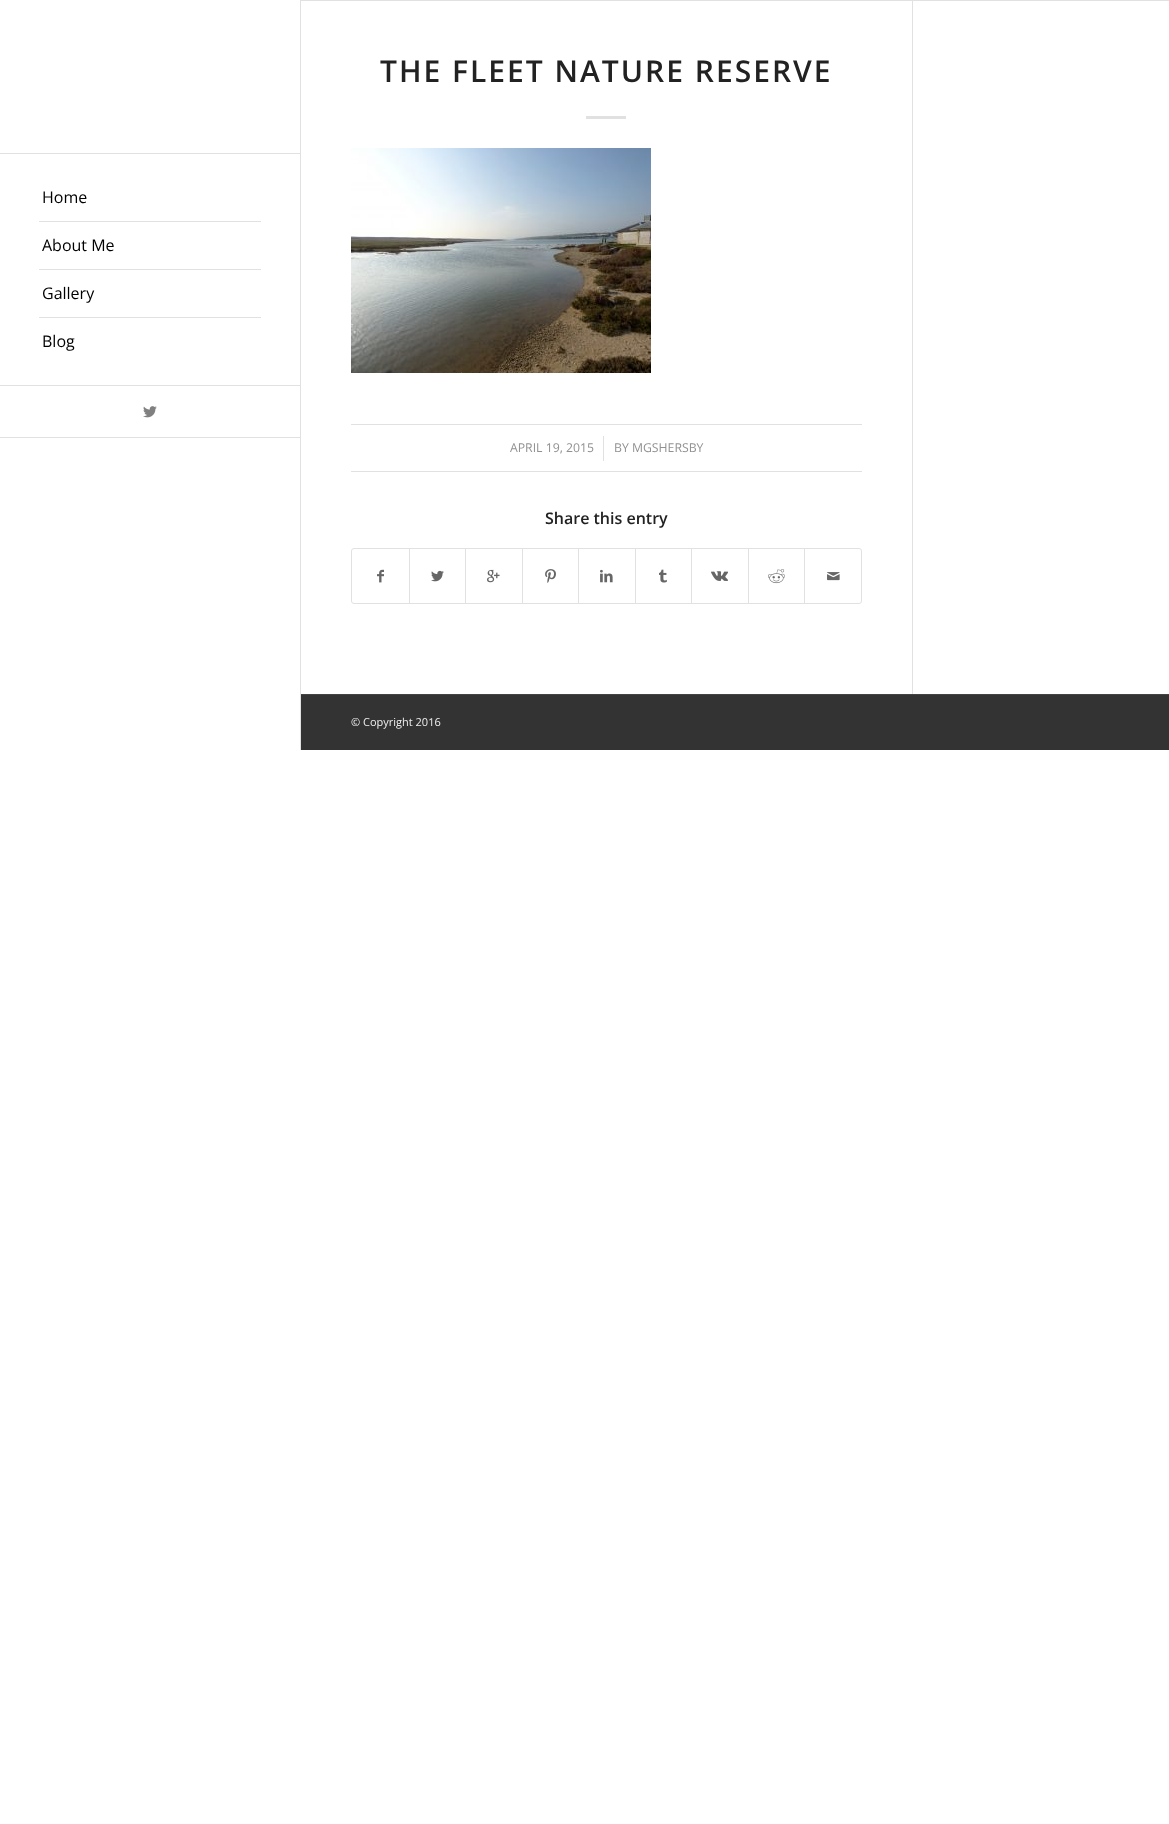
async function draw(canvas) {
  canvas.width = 1169;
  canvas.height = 1824;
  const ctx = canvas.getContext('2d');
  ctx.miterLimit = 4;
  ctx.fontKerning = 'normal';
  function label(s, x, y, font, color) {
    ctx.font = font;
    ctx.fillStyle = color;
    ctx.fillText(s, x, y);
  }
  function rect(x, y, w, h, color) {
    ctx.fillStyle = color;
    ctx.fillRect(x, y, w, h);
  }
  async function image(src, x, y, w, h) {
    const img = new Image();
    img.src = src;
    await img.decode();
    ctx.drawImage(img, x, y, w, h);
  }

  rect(0, 0, 1169, 1824, '#fff');
  rect(0, 437, 300, 1, '#e1e1e1');
  rect(0, 153, 300, 1, '#e1e1e1');
  rect(39, 221, 222, 1, '#e1e1e1');
  label('Home', 42, 203, '16px Open Sans', '#000');
  rect(39, 269, 222, 1, '#e1e1e1');
  label('About Me', 42, 251, '16px Open Sans', '#000');
  rect(39, 317, 222, 1, '#e1e1e1');
  label('Gallery', 42, 299, '16px Open Sans', '#000');
  label('Blog', 42, 347, '16px Open Sans', '#000');
  rect(0, 385, 300, 1, '#e1e1e1');
  await image('assets/img1.png', 143, 406, 14, 12);
  rect(300, 0, 1, 750, '#e1e1e1');
  rect(301, 0, 868, 1, '#e1e1e1');
  rect(912, 1, 1, 693, '#e1e1e1');
  ctx.letterSpacing = '2px';
  label('THE FLEET NATURE RESERVE', 380, 82, '600 30px Open Sans', '#222');
  rect(586, 116, 40, 3, '#e1e1e1');
  await image('assets/img2.png', 351, 148, 300, 225);
  rect(351, 424, 511, 1, '#e1e1e1');
  rect(351, 471, 511, 1, '#e1e1e1');
  ctx.letterSpacing = '0px';
  label('APRIL 19, 2015', 510, 452, '12.25px Open Sans', '#919191');
  rect(603, 436, 1, 25, '#e1e1e1');
  label('BY MGSHERSBY', 614, 452, '12.25px Open Sans', '#919191');
  label('Share this entry', 545, 524, '600 16px Open Sans', '#222');
  ctx.beginPath();
  ctx.roundRect(351.5, 548.5, 510, 55, 2.5);
  ctx.strokeStyle = '#e1e1e1';
  ctx.stroke();
  await image('assets/img3.png', 377, 569, 7, 14);
  rect(409, 549, 1, 54, '#e1e1e1');
  await image('assets/img4.png', 431, 570, 13, 12);
  rect(465, 549, 1, 54, '#e1e1e1');
  await image('assets/img5.png', 487, 569, 13, 14);
  rect(522, 549, 1, 54, '#e1e1e1');
  await image('assets/img6.png', 545, 569, 11, 14);
  rect(578, 549, 1, 54, '#e1e1e1');
  await image('assets/img7.png', 600, 569, 13, 14);
  rect(635, 549, 1, 54, '#e1e1e1');
  await image('assets/img8.png', 659, 569, 8, 14);
  rect(691, 549, 1, 54, '#e1e1e1');
  await image('assets/img9.png', 711, 571, 17, 10);
  rect(748, 549, 1, 54, '#e1e1e1');
  await image('assets/img10.png', 768, 569, 17, 15);
  rect(804, 549, 1, 54, '#e1e1e1');
  await image('assets/img11.png', 827, 572, 13, 9);
  rect(301, 695, 868, 55, '#333');
  rect(301, 694, 868, 1, '#444');
  label('© Copyright 2016', 351, 726, '11px Open Sans', '#eee');
}

draw(document.querySelector('canvas'));
